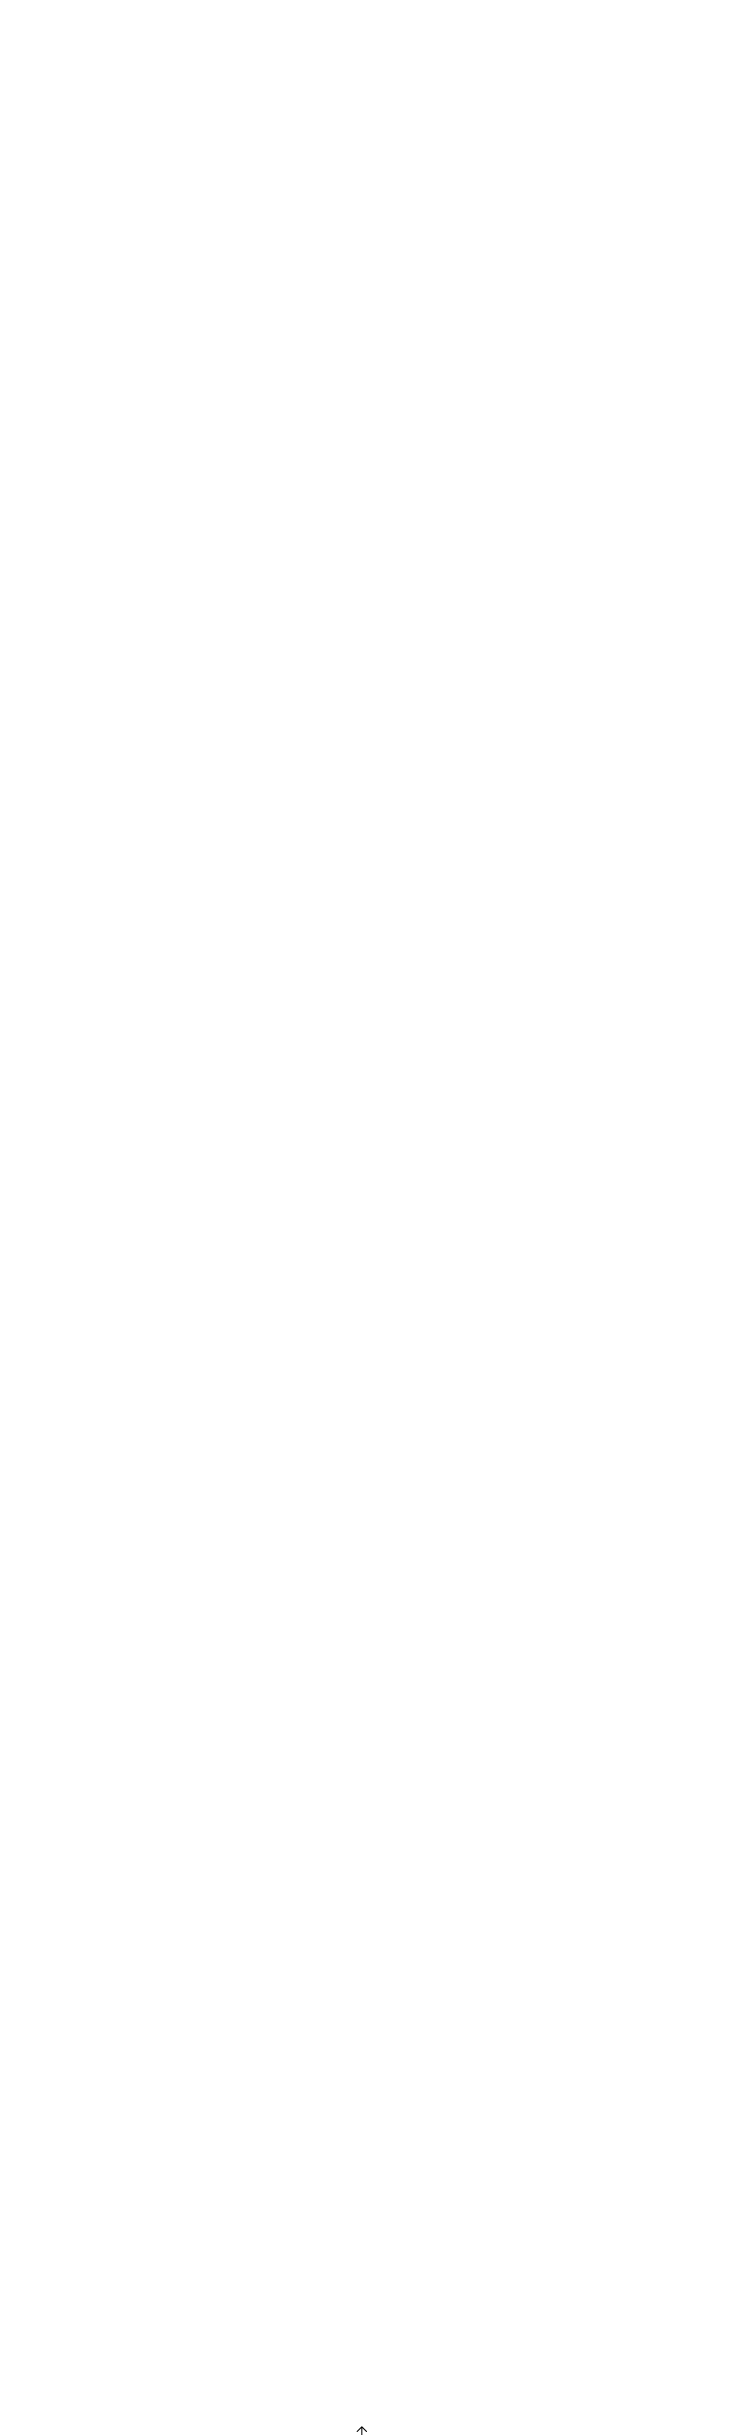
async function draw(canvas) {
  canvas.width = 752;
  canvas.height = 2435;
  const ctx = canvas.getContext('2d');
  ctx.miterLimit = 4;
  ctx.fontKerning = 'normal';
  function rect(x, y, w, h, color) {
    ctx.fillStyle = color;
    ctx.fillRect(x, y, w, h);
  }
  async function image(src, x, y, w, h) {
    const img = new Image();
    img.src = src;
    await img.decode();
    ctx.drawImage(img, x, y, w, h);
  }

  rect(0, 0, 752, 2435, '#fff');
  await image('assets/img1.png', 356, 2426, 11, 9);
}

draw(document.querySelector('canvas'));
